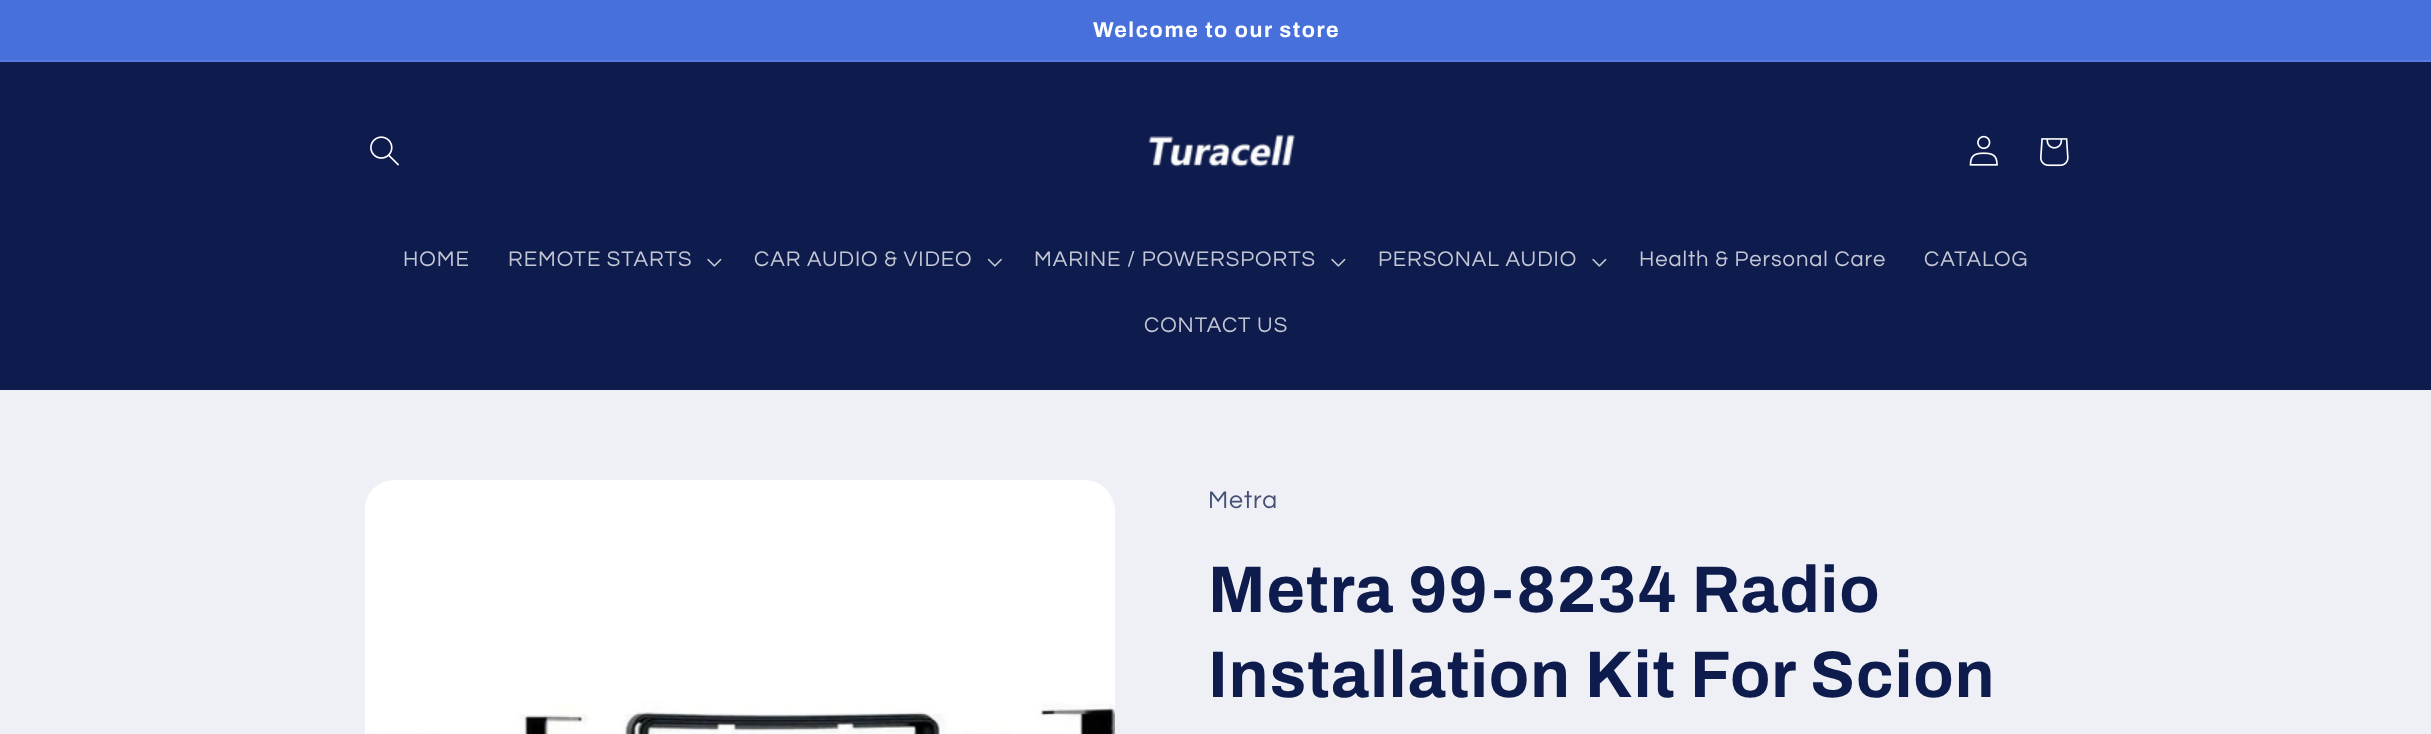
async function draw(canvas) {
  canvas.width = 2431;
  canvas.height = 734;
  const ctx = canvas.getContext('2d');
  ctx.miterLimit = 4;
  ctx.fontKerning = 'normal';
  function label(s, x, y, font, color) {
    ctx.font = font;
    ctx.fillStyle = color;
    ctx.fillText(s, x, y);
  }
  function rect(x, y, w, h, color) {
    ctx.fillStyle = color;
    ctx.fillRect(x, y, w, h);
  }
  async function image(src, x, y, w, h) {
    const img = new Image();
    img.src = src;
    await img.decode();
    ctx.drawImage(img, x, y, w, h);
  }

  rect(0, 0, 2431, 734, '#eff0f5');
  rect(0, 0, 2431, 60, '#4770db');
  rect(0, 60, 2431, 2, '#567bde');
  ctx.letterSpacing = '1.6px';
  label('Welcome to our store', 1093, 37, 'bold 21.5px Archivo', '#fff');
  rect(0, 62, 2431, 328, '#0e1b4d');
  await image('assets/img1.png', 370, 136, 29, 30);
  await image('assets/img2.png', 1148, 134, 147, 33);
  await image('assets/img3.png', 1969, 135, 29, 31);
  await image('assets/img4.png', 2040, 138, 29, 29);
  ctx.letterSpacing = '0.95px';
  label('HOME', 403, 266, '22px Questrial', '#c3c6d3');
  label('REMOTE STARTS', 508, 266, '22px Questrial', '#c3c6d3');
  await image('assets/img5.png', 707, 258, 15, 9);
  label('CAR AUDIO & VIDEO', 754, 266, '22px Questrial', '#c3c6d3');
  await image('assets/img6.png', 987, 258, 15, 9);
  label('MARINE / POWERSPORTS', 1034, 266, '22px Questrial', '#c3c6d3');
  await image('assets/img5.png', 1331, 258, 15, 9);
  label('PERSONAL AUDIO', 1378, 266, '22px Questrial', '#c3c6d3');
  await image('assets/img5.png', 1592, 258, 15, 9);
  label('Health & Personal Care', 1639, 266, '22px Questrial', '#c3c6d3');
  label('CATALOG', 1924, 266, '22px Questrial', '#c3c6d3');
  label('CONTACT US', 1144, 332, '22px Questrial', '#c3c6d3');
  await image('assets/img7.png', 365, 480, 750, 254);
  label('Metra', 1208, 508, '25px Questrial', '#465077');
  ctx.letterSpacing = '1px';
  label('Metra 99-8234 Radio', 1208, 612, 'bold 66px Archivo', '#0e1b4d');
  label('Installation Kit For Scion', 1208, 697, 'bold 66px Archivo', '#0e1b4d');
}

draw(document.querySelector('canvas'));
